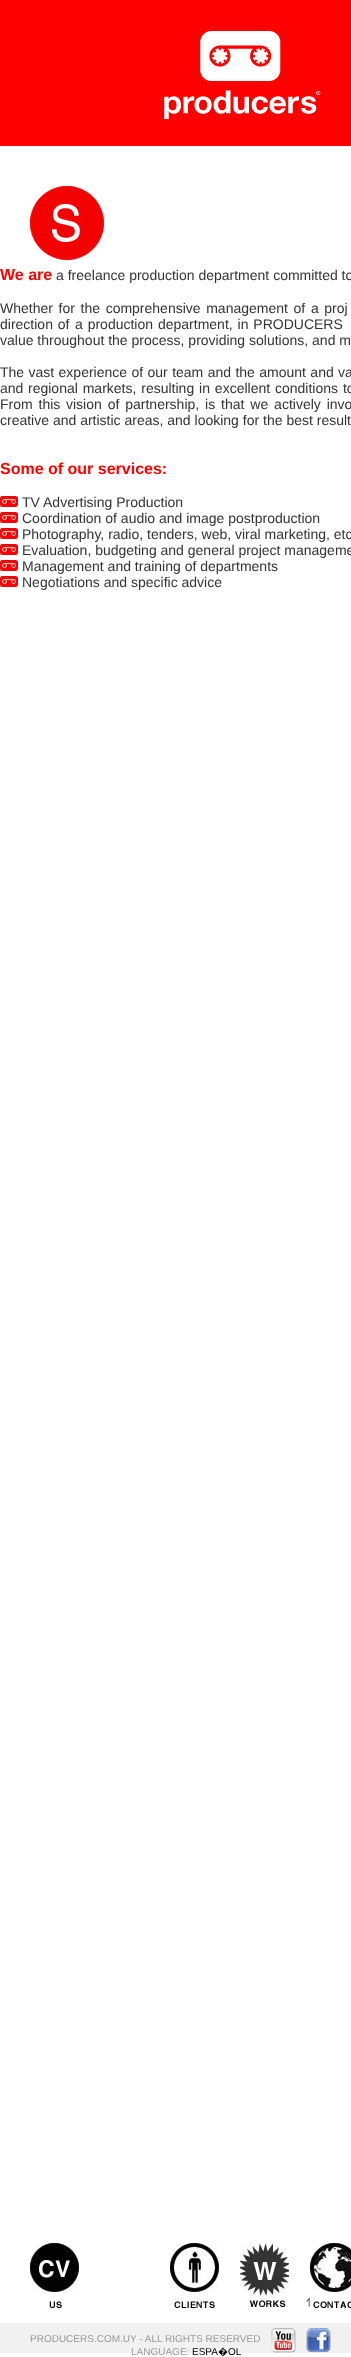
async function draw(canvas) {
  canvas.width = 351;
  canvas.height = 2357;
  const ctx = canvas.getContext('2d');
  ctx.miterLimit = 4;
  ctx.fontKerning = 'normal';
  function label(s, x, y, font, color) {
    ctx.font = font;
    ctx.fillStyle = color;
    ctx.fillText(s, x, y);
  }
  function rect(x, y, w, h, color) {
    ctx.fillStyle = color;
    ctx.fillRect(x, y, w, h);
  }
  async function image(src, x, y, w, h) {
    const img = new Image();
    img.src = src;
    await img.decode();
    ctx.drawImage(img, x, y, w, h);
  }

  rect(0, 0, 351, 2357, '#fff');
  rect(0, 0, 351, 146, '#f00');
  await image('assets/img1.png', 164, 31, 157, 88);
  await image('assets/img2.png', 30, 186, 74, 74);
  label('We are', 0, 280, 'bold 16px Liberation Sans', '#f00');
  label('a freelance production department committed to', 56, 280, '14px Liberation Sans', '#333');
  ctx.wordSpacing = '1.75px';
  label('Whether for the comprehensive management of a proj', 0, 313, '14px Liberation Sans', '#333');
  ctx.wordSpacing = '1px';
  label('direction of', 0, 329, '14px Liberation Sans', '#333');
  label('a production department, in PRODUCERS', 75, 329, '14px Liberation Sans', '#333');
  ctx.wordSpacing = '0px';
  label('value throughout the process, providing solutions, and m', 0, 345, '14px Liberation Sans', '#333');
  ctx.wordSpacing = '0.5px';
  label('The vast experience of our team and the amount and va', 0, 377, '14px Liberation Sans', '#333');
  ctx.wordSpacing = '0px';
  label('and', 0, 393, '14px Liberation Sans', '#333');
  ctx.wordSpacing = '1px';
  label('regional markets, resulting in excellent conditions to', 28, 393, '14px Liberation Sans', '#333');
  ctx.wordSpacing = '2px';
  label('From this', 0, 409, '14px Liberation Sans', '#333');
  label('vision of partnership, is that we actively invo', 66, 409, '14px Liberation Sans', '#333');
  ctx.wordSpacing = '0px';
  label('creative and artistic areas, and looking for the best result', 0, 425, '14px Liberation Sans', '#333');
  label('Some of our services:', 0, 474, 'bold 16px Liberation Sans', '#f00');
  await image('assets/img3.png', 0, 496, 18, 11);
  label('TV Advertising Production', 22, 507, '14px Liberation Sans', '#333');
  await image('assets/img3.png', 0, 512, 18, 11);
  label('Coordination of audio and image postproduction', 22, 523, '14px Liberation Sans', '#333');
  await image('assets/img3.png', 0, 528, 18, 11);
  label('Photography, radio, tenders, web, viral marketing, etc', 22, 539, '14px Liberation Sans', '#333');
  await image('assets/img3.png', 0, 544, 18, 11);
  label('Evaluation, budgeting and general project manageme', 22, 555, '14px Liberation Sans', '#333');
  await image('assets/img3.png', 0, 560, 18, 11);
  label('Management and training of departments', 22, 571, '14px Liberation Sans', '#333');
  await image('assets/img3.png', 0, 576, 18, 11);
  label('Negotiations and specific advice', 22, 587, '14px Liberation Sans', '#333');
  rect(0, 2323, 351, 30, '#f1f1f1');
  await image('assets/img4.png', 30, 2243, 49, 65);
  await image('assets/img5.png', 30, 2243, 48, 48);
  await image('assets/img6.png', 170, 2243, 49, 65);
  await image('assets/img7.png', 170, 2243, 48, 48);
  await image('assets/img8.png', 240, 2243, 49, 56);
  await image('assets/img9.png', 240, 2299, 49, 8);
  await image('assets/img10.png', 306, 2297, 4, 10);
  await image('assets/img11.png', 310, 2243, 41, 48);
  await image('assets/img12.png', 310, 2291, 41, 17);
  label('PRODUCERS.COM.UY - ALL RIGHTS RESERVED', 30, 2342, '10px Liberation Sans', '#999');
  await image('assets/img13.png', 271, 2328, 25, 25);
  await image('assets/img14.png', 306, 2328, 25, 25);
  label('LANGUAGE:', 131, 2355, '10px Liberation Sans', '#999');
  label('ESPA', 192, 2355, '10px Liberation Sans', '#000');
  label('�', 218, 2355, '10px Noto Sans', '#000');
  label('OL', 228, 2355, '10px Liberation Sans', '#000');
}

draw(document.querySelector('canvas'));
